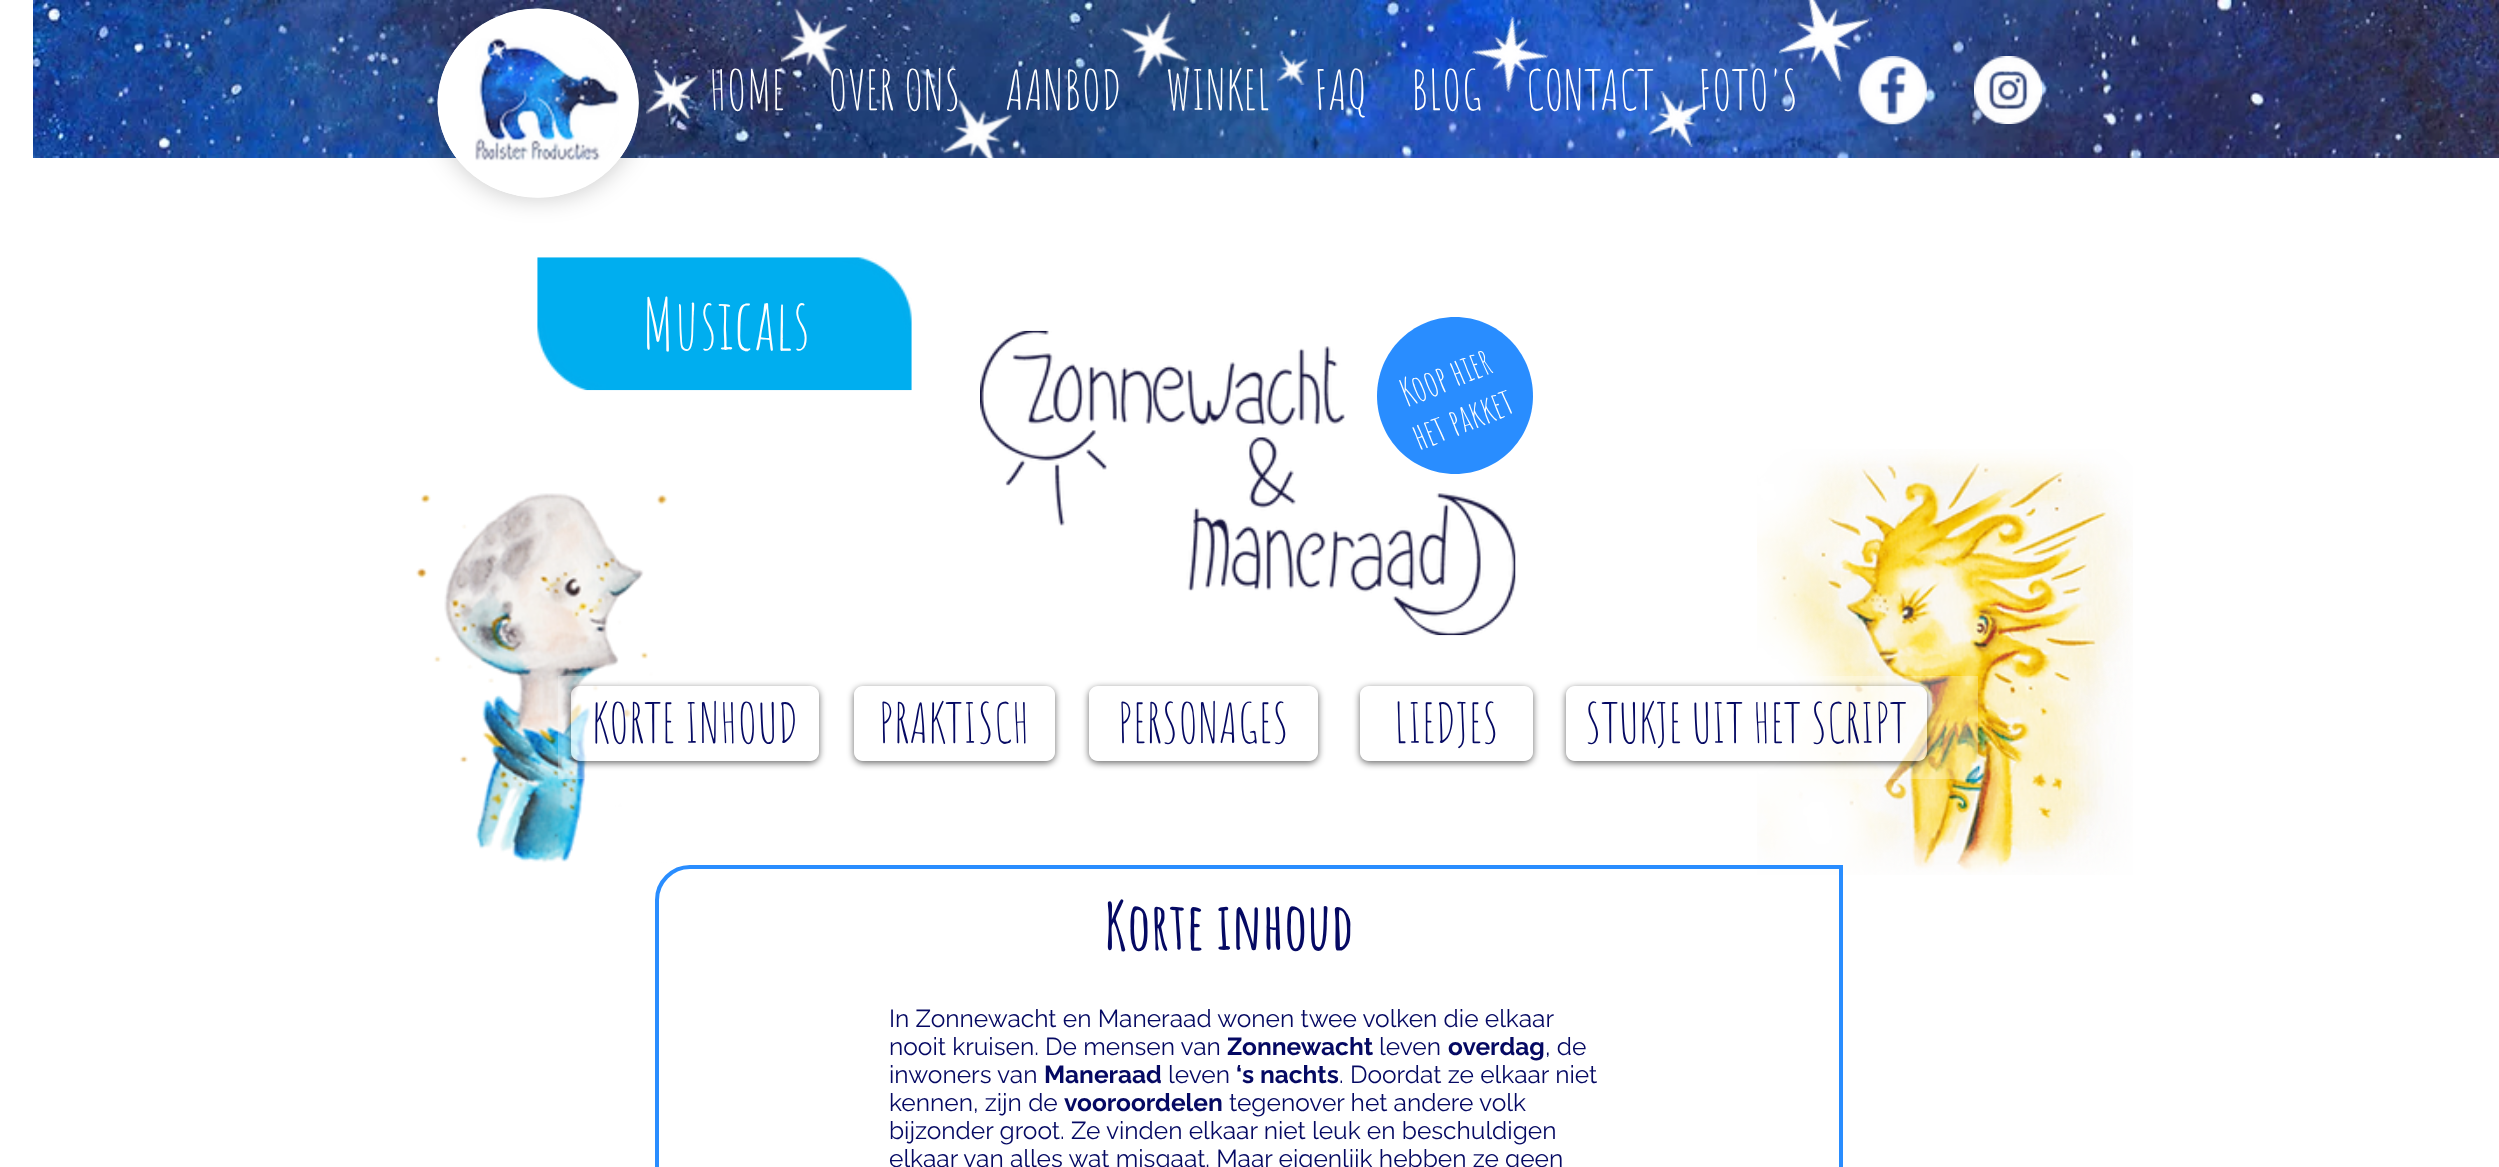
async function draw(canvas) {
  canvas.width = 2499;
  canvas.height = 1167;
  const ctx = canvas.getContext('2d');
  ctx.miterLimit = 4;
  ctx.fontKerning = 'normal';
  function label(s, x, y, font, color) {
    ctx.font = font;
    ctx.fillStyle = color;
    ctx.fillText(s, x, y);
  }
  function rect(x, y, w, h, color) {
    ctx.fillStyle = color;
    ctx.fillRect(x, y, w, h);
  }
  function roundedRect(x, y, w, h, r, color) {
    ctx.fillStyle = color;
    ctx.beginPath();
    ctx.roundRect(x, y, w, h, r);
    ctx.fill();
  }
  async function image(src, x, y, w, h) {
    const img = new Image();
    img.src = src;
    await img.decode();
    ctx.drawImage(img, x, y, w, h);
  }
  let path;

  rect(0, 0, 2499, 1167, '#fff');
  await image('assets/img1.png', 33, 0, 2466, 158);
  ctx.fillStyle = '#00000033';
  ctx.filter = 'blur(12px)';
  ctx.beginPath();
  ctx.roundRect(438, 9, 201, 189, 94.5);
  ctx.fill();
  ctx.filter = 'none';
  ctx.fillStyle = '#fff';
  ctx.beginPath();
  ctx.ellipse(538, 103, 100.5, 94.5, 0, 0, 2 * Math.PI);
  ctx.fill();
  path = new Path2D('M538 14C591 14 633.5 54 633.5 103C633.5 152.5 591 192.5 538 192.5C485.5 192.5 443 152.5 443 103C443 54 485.5 14 538 14Z');
  ctx.strokeStyle = '#fff';
  ctx.lineWidth = 10.5;
  ctx.stroke(path);
  await image('assets/img2.png', 475, 38, 144, 123);
  label('HOME', 709, 110, '54.25px Amatic SC', '#fff');
  label('OVER ONS', 828, 110, '54.25px Amatic SC', '#fff');
  await image('assets/img3.png', 781, 8, 67, 70);
  label('WINKEL', 1166, 110, '54.25px Amatic SC', '#fff');
  await image('assets/img4.png', 1120, 10, 69, 69);
  await image('assets/img5.png', 1276, 55, 32, 31);
  label('BLOG', 1411, 110, '54.25px Amatic SC', '#fff');
  label('CONTACT', 1526, 110, '54.25px Amatic SC', '#fff');
  await image('assets/img6.png', 1472, 16, 77, 77);
  label('FOTO\'S', 1698, 110, '54.25px Amatic SC', '#fff');
  await image('assets/img7.png', 1779, 0, 90, 82);
  await image('assets/img8.png', 1858, 56, 69, 69);
  await image('assets/img9.png', 1974, 56, 68, 68);
  await image('assets/img10.png', 646, 70, 52, 50);
  label('AANBOD', 1005, 110, '54.25px Amatic SC', '#fff');
  label('FAQ', 1314, 110, '54.25px Amatic SC', '#fff');
  await image('assets/img11.png', 943, 99, 69, 59);
  await image('assets/img12.png', 1648, 91, 57, 56);
  await image('assets/img13.png', 537, 257, 375, 134);
  label('Musicals', 642, 350, '70px Amatic SC', '#fff');
  await image('assets/img14.png', 980, 330, 536, 306);
  ctx.fillStyle = '#298dff';
  path = new Path2D('M1533 396C1533 439 1498 474 1455 474C1412 474 1377 439 1377 396C1377 352 1412 317 1455 317C1498 317 1533 352 1533 396Z');
  ctx.fill(path);
  ctx.font = '37px Amatic SC';
  ctx.fillStyle = '#fff';
  ctx.save();
  ctx.translate(1407, 407);
  ctx.rotate(-21.9 * Math.PI / 180);
  ctx.fillText('Koop hier', 0, 0);
  ctx.restore();
  ctx.save();
  ctx.translate(1419, 451);
  ctx.rotate(-21.9 * Math.PI / 180);
  ctx.fillText('het pakket', 0, 0);
  ctx.restore();
  await image('assets/img15.png', 416, 493, 252, 370);
  await image('assets/img16.png', 1757, 449, 376, 426);
  rect(558, 676, 1420, 103, '#ffffff4d');
  ctx.save();
  path = new Path2D('M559 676H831V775H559ZM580 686H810C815 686 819 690 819 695V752C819 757 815 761 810 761H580C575 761 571 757 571 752V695C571 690 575 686 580 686Z');
  ctx.clip(path, 'evenodd');
  ctx.fillStyle = '#00000099';
  ctx.filter = 'blur(3.5px)';
  ctx.beginPath();
  ctx.roundRect(571, 688, 248, 75, 9);
  ctx.fill();
  ctx.filter = 'none';
  ctx.restore();
  roundedRect(571, 686, 248, 75, 9, '#ffffff91');
  label('KORTE INHOUD', 592, 743, '54.25px Amatic SC', '#050963');
  ctx.save();
  path = new Path2D('M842 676H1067V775H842ZM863 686H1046C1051 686 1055 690 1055 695V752C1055 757 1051 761 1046 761H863C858 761 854 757 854 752V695C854 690 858 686 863 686Z');
  ctx.clip(path, 'evenodd');
  ctx.fillStyle = '#00000099';
  ctx.filter = 'blur(3.5px)';
  ctx.beginPath();
  ctx.roundRect(854, 688, 201, 75, 9);
  ctx.fill();
  ctx.filter = 'none';
  ctx.restore();
  roundedRect(854, 686, 201, 75, 9, '#ffffff91');
  label('PRAKTISCH', 879, 743, '54.25px Amatic SC', '#050963');
  ctx.save();
  path = new Path2D('M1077 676H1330V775H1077ZM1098 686H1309C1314 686 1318 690 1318 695V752C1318 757 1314 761 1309 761H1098C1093 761 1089 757 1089 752V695C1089 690 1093 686 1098 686Z');
  ctx.clip(path, 'evenodd');
  ctx.fillStyle = '#00000099';
  ctx.filter = 'blur(3.5px)';
  ctx.beginPath();
  ctx.roundRect(1089, 688, 229, 75, 9);
  ctx.fill();
  ctx.filter = 'none';
  ctx.restore();
  roundedRect(1089, 686, 229, 75, 9, '#ffffff91');
  label('PERSONAGES', 1118, 743, '54.25px Amatic SC', '#050963');
  ctx.save();
  path = new Path2D('M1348 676H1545V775H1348ZM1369 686H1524C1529 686 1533 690 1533 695V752C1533 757 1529 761 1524 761H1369C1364 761 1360 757 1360 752V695C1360 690 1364 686 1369 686Z');
  ctx.clip(path, 'evenodd');
  ctx.fillStyle = '#00000099';
  ctx.filter = 'blur(3.5px)';
  ctx.beginPath();
  ctx.roundRect(1360, 688, 173, 75, 9);
  ctx.fill();
  ctx.filter = 'none';
  ctx.restore();
  roundedRect(1360, 686, 173, 75, 9, '#ffffff91');
  label('LIEDJES', 1394, 743, '54.25px Amatic SC', '#050963');
  ctx.save();
  path = new Path2D('M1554 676H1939V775H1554ZM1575 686H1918C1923 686 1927 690 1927 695V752C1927 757 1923 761 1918 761H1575C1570 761 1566 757 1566 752V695C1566 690 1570 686 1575 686Z');
  ctx.clip(path, 'evenodd');
  ctx.fillStyle = '#00000099';
  ctx.filter = 'blur(3.5px)';
  ctx.beginPath();
  ctx.roundRect(1566, 688, 361, 75, 9);
  ctx.fill();
  ctx.filter = 'none';
  ctx.restore();
  roundedRect(1566, 686, 361, 75, 9, '#ffffff91');
  label('STUKJE UIT HET SCRIPT', 1585, 743, '54.25px Amatic SC', '#050963');
  path = new Path2D('M690 867H1841V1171C1841 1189 1826 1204 1808 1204H657V900C657 882 672 867 690 867Z');
  ctx.strokeStyle = '#298dff';
  ctx.lineWidth = 4;
  ctx.stroke(path);
  label('Korte inhoud', 1104, 950, 'bold 65px Amatic SC', '#050963');
  label('In Zonnewacht en Maneraad wonen twee volken die elkaar', 889, 1027, '24.5px Raleway', '#050963');
  label('nooit kruisen. De mensen van', 889, 1055, '24.5px Raleway', '#050963');
  label('Zonnewacht', 1227, 1055, 'bold 24.5px Raleway', '#050963');
  label('leven', 1379, 1055, '24.5px Raleway', '#050963');
  label('overdag', 1448, 1055, 'bold 24.5px Raleway', '#050963');
  label(', de', 1545, 1055, '24.5px Raleway', '#050963');
  label('inwoners van', 889, 1083, '24.5px Raleway', '#050963');
  label('Maneraad', 1044, 1083, 'bold 24.5px Raleway', '#050963');
  label('leven', 1168, 1083, '24.5px Raleway', '#050963');
  label('‘s nachts', 1236, 1083, 'bold 24.5px Raleway', '#050963');
  label('. Doordat ze elkaar niet', 1339, 1083, '24.5px Raleway', '#050963');
  label('kennen, zijn de', 889, 1111, '24.5px Raleway', '#050963');
  label('vooroordelen', 1064, 1111, 'bold 24.5px Raleway', '#050963');
  label('tegenover het andere volk', 1229, 1111, '24.5px Raleway', '#050963');
  label('bijzonder groot. Ze vinden elkaar niet leuk en beschuldigen', 889, 1139, '24.5px Raleway', '#050963');
  label('elkaar van alles wat misgaat. Maar eigenlijk hebben ze geen', 889, 1167, '24.5px Raleway', '#050963');
}

draw(document.querySelector('canvas'));
